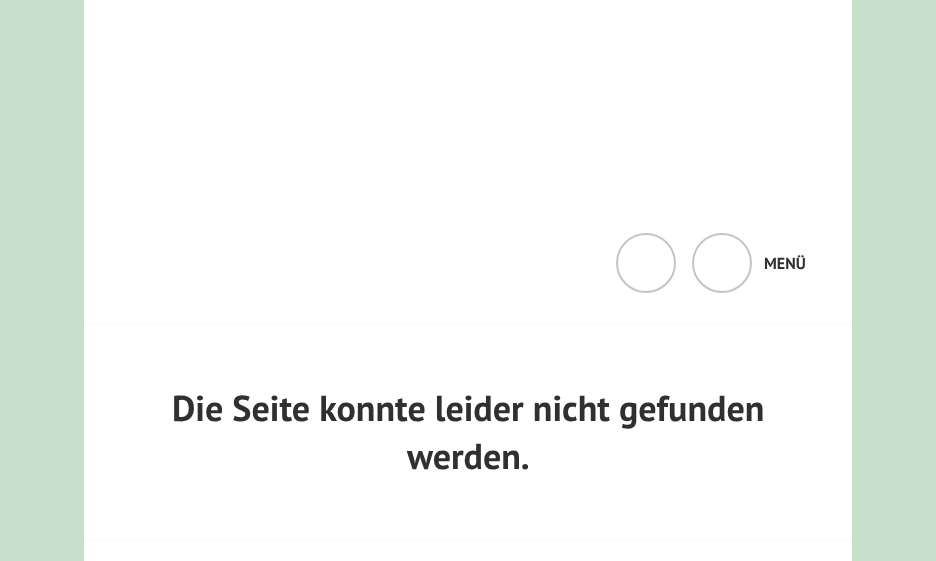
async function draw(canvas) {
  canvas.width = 936;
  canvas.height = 561;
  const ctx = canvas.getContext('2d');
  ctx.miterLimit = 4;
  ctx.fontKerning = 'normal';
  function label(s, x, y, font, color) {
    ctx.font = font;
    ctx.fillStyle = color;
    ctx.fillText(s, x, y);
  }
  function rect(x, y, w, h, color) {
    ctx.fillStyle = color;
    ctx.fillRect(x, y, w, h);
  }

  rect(0, 0, 936, 561, '#c7e0cb');
  rect(84, 0, 768, 323, '#fff');
  rect(84, 323, 768, 1, '#f8f8f8');
  ctx.beginPath();
  ctx.arc(646, 263, 29, 0, 2 * Math.PI);
  ctx.strokeStyle = '#c5c5c5';
  ctx.lineWidth = 2;
  ctx.stroke();
  ctx.beginPath();
  ctx.arc(722, 263, 29, 0, 2 * Math.PI);
  ctx.stroke();
  label('MENÜ', 764, 269, 'bold 16px PT Sans', '#303030');
  rect(84, 324, 768, 237, '#fff');
  rect(84, 540, 768, 1, '#f8f8f8');
  label('Die Seite konnte leider nicht gefunden', 172, 421, 'bold 36px PT Sans', '#303030');
  label('werden.', 407, 469, 'bold 36px PT Sans', '#303030');
}

draw(document.querySelector('canvas'));
